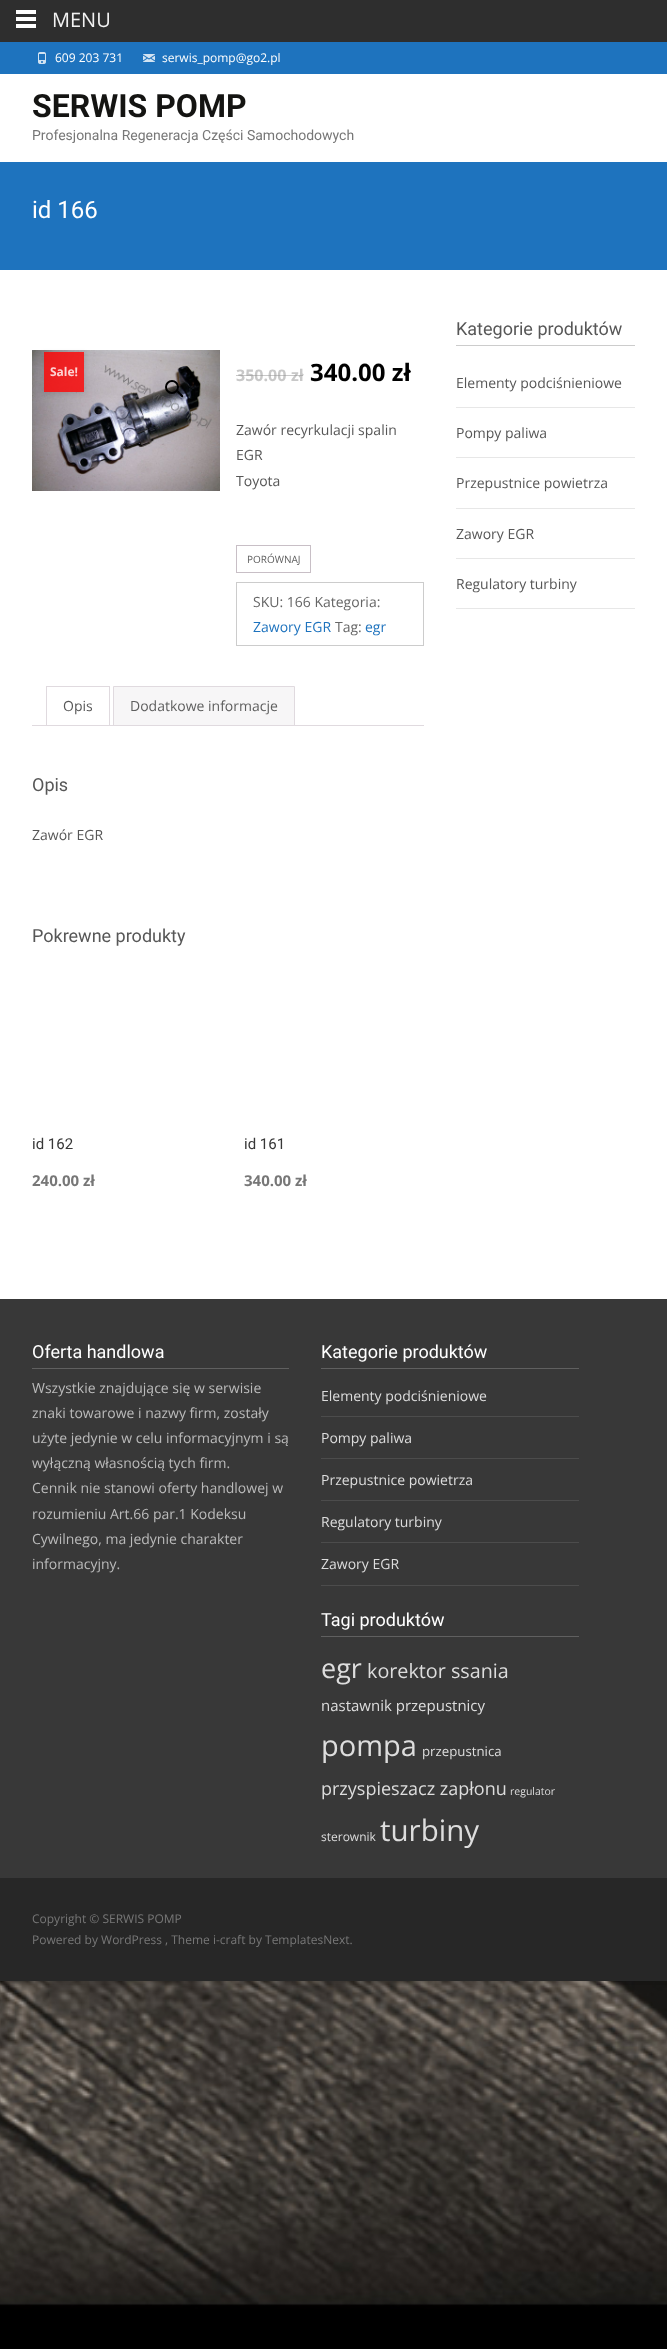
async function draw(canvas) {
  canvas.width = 667;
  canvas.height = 2349;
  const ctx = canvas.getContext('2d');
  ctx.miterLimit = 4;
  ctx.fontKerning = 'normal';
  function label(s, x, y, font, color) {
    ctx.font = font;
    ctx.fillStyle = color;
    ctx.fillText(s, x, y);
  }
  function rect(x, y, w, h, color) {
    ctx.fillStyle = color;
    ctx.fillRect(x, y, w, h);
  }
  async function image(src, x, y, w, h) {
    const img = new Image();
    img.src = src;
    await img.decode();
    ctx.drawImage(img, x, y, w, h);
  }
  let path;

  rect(0, 0, 667, 2349, '#fff');
  await image('assets/img1.png', 0, 1981, 667, 368);
  ctx.fillStyle = '#0000001a';
  ctx.filter = 'blur(2px)';
  ctx.beginPath();
  ctx.roundRect(0, 42, 667, 1939, 2);
  ctx.fill();
  ctx.filter = 'none';
  ctx.filter = 'blur(2px)';
  ctx.beginPath();
  ctx.roundRect(0, 42, 667, 1939, 2);
  ctx.fill();
  ctx.filter = 'none';
  rect(0, 0, 667, 42, '#2e2e2e');
  rect(16, 10, 20, 4, '#fff');
  rect(16, 17, 20, 4, '#fff');
  rect(16, 24, 20, 4, '#fff');
  label('MENU', 52, 27, '20px Open Sans', '#f2f2f2');
  rect(0, 74, 667, 1225, '#fff');
  rect(0, 42, 667, 32, '#1e73be');
  await image('assets/img2.png', 38, 52, 8, 12);
  label('609 203 731', 55, 62, '12px Open Sans', '#fff');
  await image('assets/img3.png', 143, 54, 12, 8);
  label('serwis_pomp@go2.pl', 162, 62, '12px Open Sans', '#fff');
  label('SERWIS POMP', 32, 117, 'bold 32px Roboto', '#141412');
  label('Profesjonalna Regeneracja Części Samochodowych', 32, 140, '14px Roboto', '#777');
  rect(0, 162, 667, 108, '#1e73be');
  label('id 166', 32, 218, '24px Roboto', '#fff');
  await image('assets/img4.png', 32, 350, 188, 141);
  ctx.beginPath();
  ctx.arc(172, 387, 6, 0, 2 * Math.PI);
  ctx.strokeStyle = '#000';
  ctx.lineWidth = 2;
  ctx.stroke();
  ctx.fillStyle = '#000';
  path = new Path2D('M177.5 391C178.5 390 180 392.5 181 393.5C181.5 394 184 395.5 183 397C182 398 180 395.5 179.5 394.5C179 394 176 392.5 177.5 391Z');
  ctx.fill(path);
  label('350.00', 236, 381, 'bold 16px Open Sans', '#c8c8c8');
  rect(236, 375, 55, 1, '#91919180');
  label('zł', 291, 381, 'bold 16px Open Sans', '#c8c8c8');
  rect(291, 375, 12, 1, '#91919180');
  label('340.00 zł', 310, 381, 'bold 24px Open Sans', '#000');
  label('Zawór recyrkulacji spalin', 236, 435, '14px Open Sans', '#575757');
  label('EGR', 236, 460, '14px Open Sans', '#575757');
  label('Toyota', 236, 486, '14px Open Sans', '#575757');
  ctx.strokeStyle = '#c8bfc6';
  ctx.lineWidth = 1;
  ctx.strokeRect(236.5, 545.5, 74, 27);
  label('PORÓWNAJ', 247, 563, '10px Open Sans', '#5e5e5e');
  ctx.strokeStyle = '#ccc';
  ctx.strokeRect(236.5, 582.5, 187, 63);
  label('SKU: 166 Kategoria:', 253, 607, '14px Open Sans', '#666');
  label('Zawory EGR', 253, 632, '14px Open Sans', '#1e73be');
  label('Tag:', 335, 632, '14px Open Sans', '#666');
  label('egr', 365, 632, '14px Open Sans', '#1e73be');
  ctx.save();
  path = new Path2D('M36 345H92V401H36ZM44 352H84V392H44Z');
  ctx.clip(path, 'evenodd');
  ctx.fillStyle = '#00000014';
  ctx.filter = 'blur(2px)';
  ctx.beginPath();
  ctx.rect(43, 352, 42, 42);
  ctx.fill();
  ctx.filter = 'none';
  ctx.restore();
  rect(44, 352, 40, 40, '#ff0000cc');
  label('Sale!', 50, 376, 'bold 12px Open Sans', '#fcd3d3');
  rect(46, 686, 64, 1, '#e0dadf');
  rect(109, 686, 1, 40, '#e0dadf');
  rect(46, 686, 1, 40, '#e0dadf');
  label('Opis', 63, 711, '14px Open Sans', '#575757');
  ctx.fillStyle = '#f7f6f7';
  ctx.beginPath();
  ctx.rect(113.5, 686.5, 181, 39);
  ctx.fill();
  ctx.strokeStyle = '#e0dadf';
  ctx.stroke();
  label('Dodatkowe informacje', 130, 711, '14px Open Sans', '#5e5e5e');
  rect(32, 725, 392, 1, '#e0dadf');
  label('Opis', 32, 791, '18px Roboto', '#575757');
  label('Zawór EGR', 32, 840, '14px Open Sans', '#575757');
  label('Pokrewne produkty', 32, 942, '18px Roboto', '#575757');
  label('id 162', 32, 1149, '15px Roboto', '#373737');
  label('240.00 zł', 32, 1186, 'bold 15px Open Sans', '#777');
  label('id 161', 244, 1149, '15px Roboto', '#373737');
  label('340.00 zł', 244, 1186, 'bold 15px Open Sans', '#777');
  rect(456, 345, 179, 1, '#ccc');
  label('Kategorie produktów', 456, 335, '18px Roboto', '#575757');
  rect(456, 407, 179, 1, '#e7e7e7');
  label('Elementy podciśnieniowe', 456, 388, '14px Open Sans', '#575757');
  rect(456, 457, 179, 1, '#e7e7e7');
  label('Pompy paliwa', 456, 438, '14px Open Sans', '#575757');
  rect(456, 508, 179, 1, '#e7e7e7');
  label('Przepustnice powietrza', 456, 488, '14px Open Sans', '#575757');
  rect(456, 558, 179, 1, '#e7e7e7');
  label('Zawory EGR', 456, 539, '14px Open Sans', '#575757');
  rect(456, 608, 179, 1, '#e7e7e7');
  label('Regulatory turbiny', 456, 589, '14px Open Sans', '#575757');
  rect(0, 1878, 667, 103, '#272727');
  rect(0, 1299, 667, 579, '#383838');
  rect(32, 1368, 257, 1, '#606060');
  label('Oferta handlowa', 32, 1358, '18px Roboto', '#fff');
  label('Wszystkie znajdujące się w serwisie', 32, 1393, '14px Open Sans', '#bbb');
  label('znaki towarowe i nazwy firm, zostały', 32, 1418, '14px Open Sans', '#bbb');
  label('użyte jedynie w celu informacyjnym i są', 32, 1443, '14px Open Sans', '#bbb');
  label('wyłączną własnością tych firm.', 32, 1468, '14px Open Sans', '#bbb');
  label('Cennik nie stanowi oferty handlowej w', 32, 1493, '14px Open Sans', '#bbb');
  label('rozumieniu Art.66 par.1 Kodeksu', 32, 1519, '14px Open Sans', '#bbb');
  label('Cywilnego, ma jedynie charakter', 32, 1544, '14px Open Sans', '#bbb');
  label('informacyjny.', 32, 1569, '14px Open Sans', '#bbb');
  rect(321, 1368, 258, 1, '#606060');
  label('Kategorie produktów', 321, 1358, '18px Roboto', '#fff');
  rect(321, 1416, 258, 1, '#4c4c4c');
  label('Elementy podciśnieniowe', 321, 1401, '14px Open Sans', '#ddd');
  rect(321, 1458, 258, 1, '#4c4c4c');
  label('Pompy paliwa', 321, 1443, '14px Open Sans', '#ddd');
  rect(321, 1500, 258, 1, '#4c4c4c');
  label('Przepustnice powietrza', 321, 1485, '14px Open Sans', '#ddd');
  rect(321, 1542, 258, 1, '#4c4c4c');
  label('Regulatory turbiny', 321, 1527, '14px Open Sans', '#ddd');
  rect(321, 1585, 258, 1, '#4c4c4c');
  label('Zawory EGR', 321, 1569, '14px Open Sans', '#ddd');
  rect(321, 1636, 258, 1, '#606060');
  label('Tagi produktów', 321, 1626, '18px Roboto', '#fff');
  label('egr', 321, 1678, '27px Open Sans', '#ddd');
  label('korektor ssania', 367, 1678, '19.75px Open Sans', '#ddd');
  label('nastawnik przepustnicy', 321, 1711, '15px Open Sans', '#ddd');
  label('pompa', 321, 1756, '29px Open Sans', '#ddd');
  label('przepustnica', 422, 1756, '13.25px Open Sans', '#ddd');
  label('przyspieszacz zapłonu', 321, 1795, '18px Open Sans', '#ddd');
  label('regulator', 510, 1795, '10.5px Open Sans', '#ddd');
  label('sterownik', 321, 1841, '12px Open Sans', '#ddd');
  label('turbiny', 380, 1841, '29.5px Open Sans', '#ddd');
  label('Copyright © SERWIS POMP', 32, 1923, '12px Open Sans', '#777');
  label('Powered by WordPress , Theme i-craft by TemplatesNext.', 32, 1944, '12px Open Sans', '#777');
}

draw(document.querySelector('canvas'));
